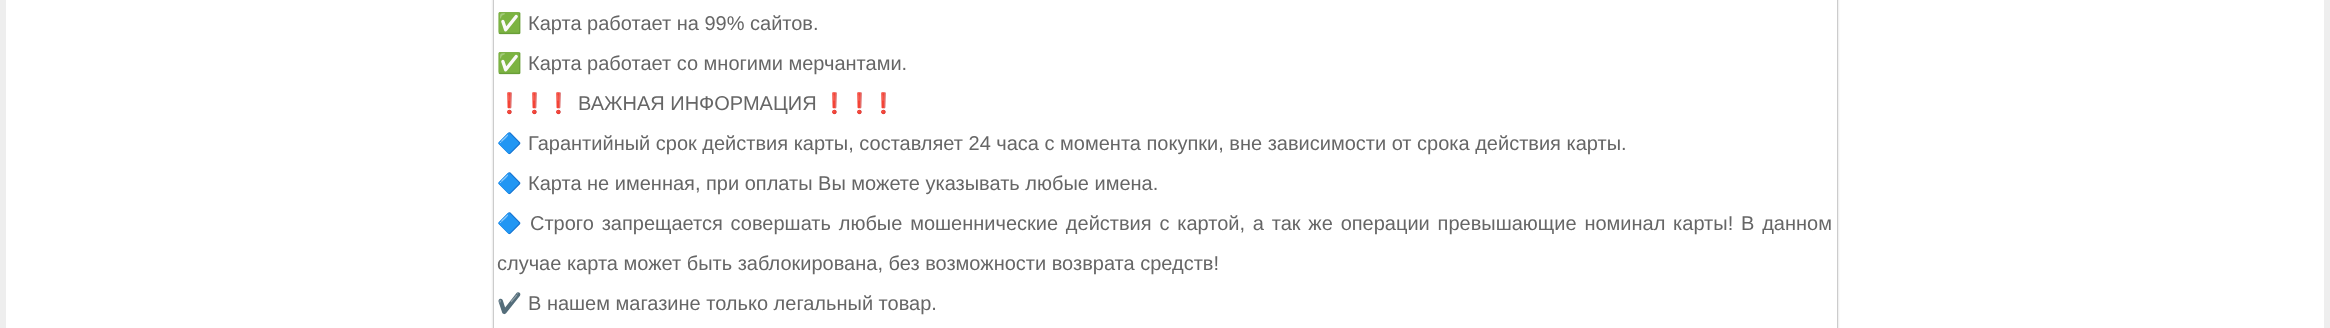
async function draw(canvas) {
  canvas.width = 2330;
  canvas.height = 328;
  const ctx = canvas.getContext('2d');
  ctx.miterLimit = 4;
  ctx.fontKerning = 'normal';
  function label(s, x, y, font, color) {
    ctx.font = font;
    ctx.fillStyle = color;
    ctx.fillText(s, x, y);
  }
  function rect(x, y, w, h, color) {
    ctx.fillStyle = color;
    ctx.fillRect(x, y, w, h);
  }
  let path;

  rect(0, 0, 2330, 328, '#eee');
  rect(6, 0, 2318, 328, '#fff');
  ctx.save();
  path = new Path2D('M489 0H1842V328H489ZM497-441H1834C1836-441 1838-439 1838-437V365C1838 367 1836 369 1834 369H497C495 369 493 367 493 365V-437C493-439 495-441 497-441Z');
  ctx.clip(path, 'evenodd');
  ctx.fillStyle = '#d1d1d1';
  ctx.filter = 'blur(1px)';
  ctx.beginPath();
  ctx.roundRect(493, -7, 1345, 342, 4);
  ctx.fill();
  ctx.filter = 'none';
  ctx.restore();
  ctx.strokeStyle = '#ccc';
  ctx.strokeRect(493.5, -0.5, 1344, 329);
  label('✅', 497, 30, '20px Noto Color Emoji', '#666');
  label('Карта работает на 99% сайтов.', 528, 30, '20px Liberation Sans', '#666');
  label('✅', 497, 70, '20px Noto Color Emoji', '#666');
  label('Карта работает со многими мерчантами.', 528, 70, '20px Liberation Sans', '#666');
  label('❗️❗️❗️', 497, 110, '20px Noto Color Emoji', '#666');
  label('ВАЖНАЯ ИНФОРМАЦИЯ', 578, 110, '20px Liberation Sans', '#666');
  label('❗️❗️❗️', 822, 110, '20px Noto Color Emoji', '#666');
  label('🔷', 497, 150, '20px Noto Color Emoji', '#666');
  label('Гарантийный срок действия карты, составляет 24 часа с момента покупки, вне зависимости от срока действия карты.', 528, 150, '20px Liberation Sans', '#666');
  label('🔷', 497, 190, '20px Noto Color Emoji', '#666');
  label('Карта не именная, при оплаты Вы можете указывать любые имена.', 528, 190, '20px Liberation Sans', '#666');
  label('🔷', 497, 230, '20px Noto Color Emoji', '#666');
  ctx.wordSpacing = '2.25px';
  label('Строго запрещается совершать любые мошеннические действия с картой, а так же операции превышающие номинал карты! В данном', 530, 230, '20px Liberation Sans', '#666');
  ctx.wordSpacing = '0px';
  label('случае карта может быть заблокирована, без возможности возврата средств!', 497, 270, '20px Liberation Sans', '#666');
  label('✔️', 497, 310, '20px Noto Color Emoji', '#666');
  label('В нашем магазине только легальный товар.', 528, 310, '20px Liberation Sans', '#666');
}

draw(document.querySelector('canvas'));
